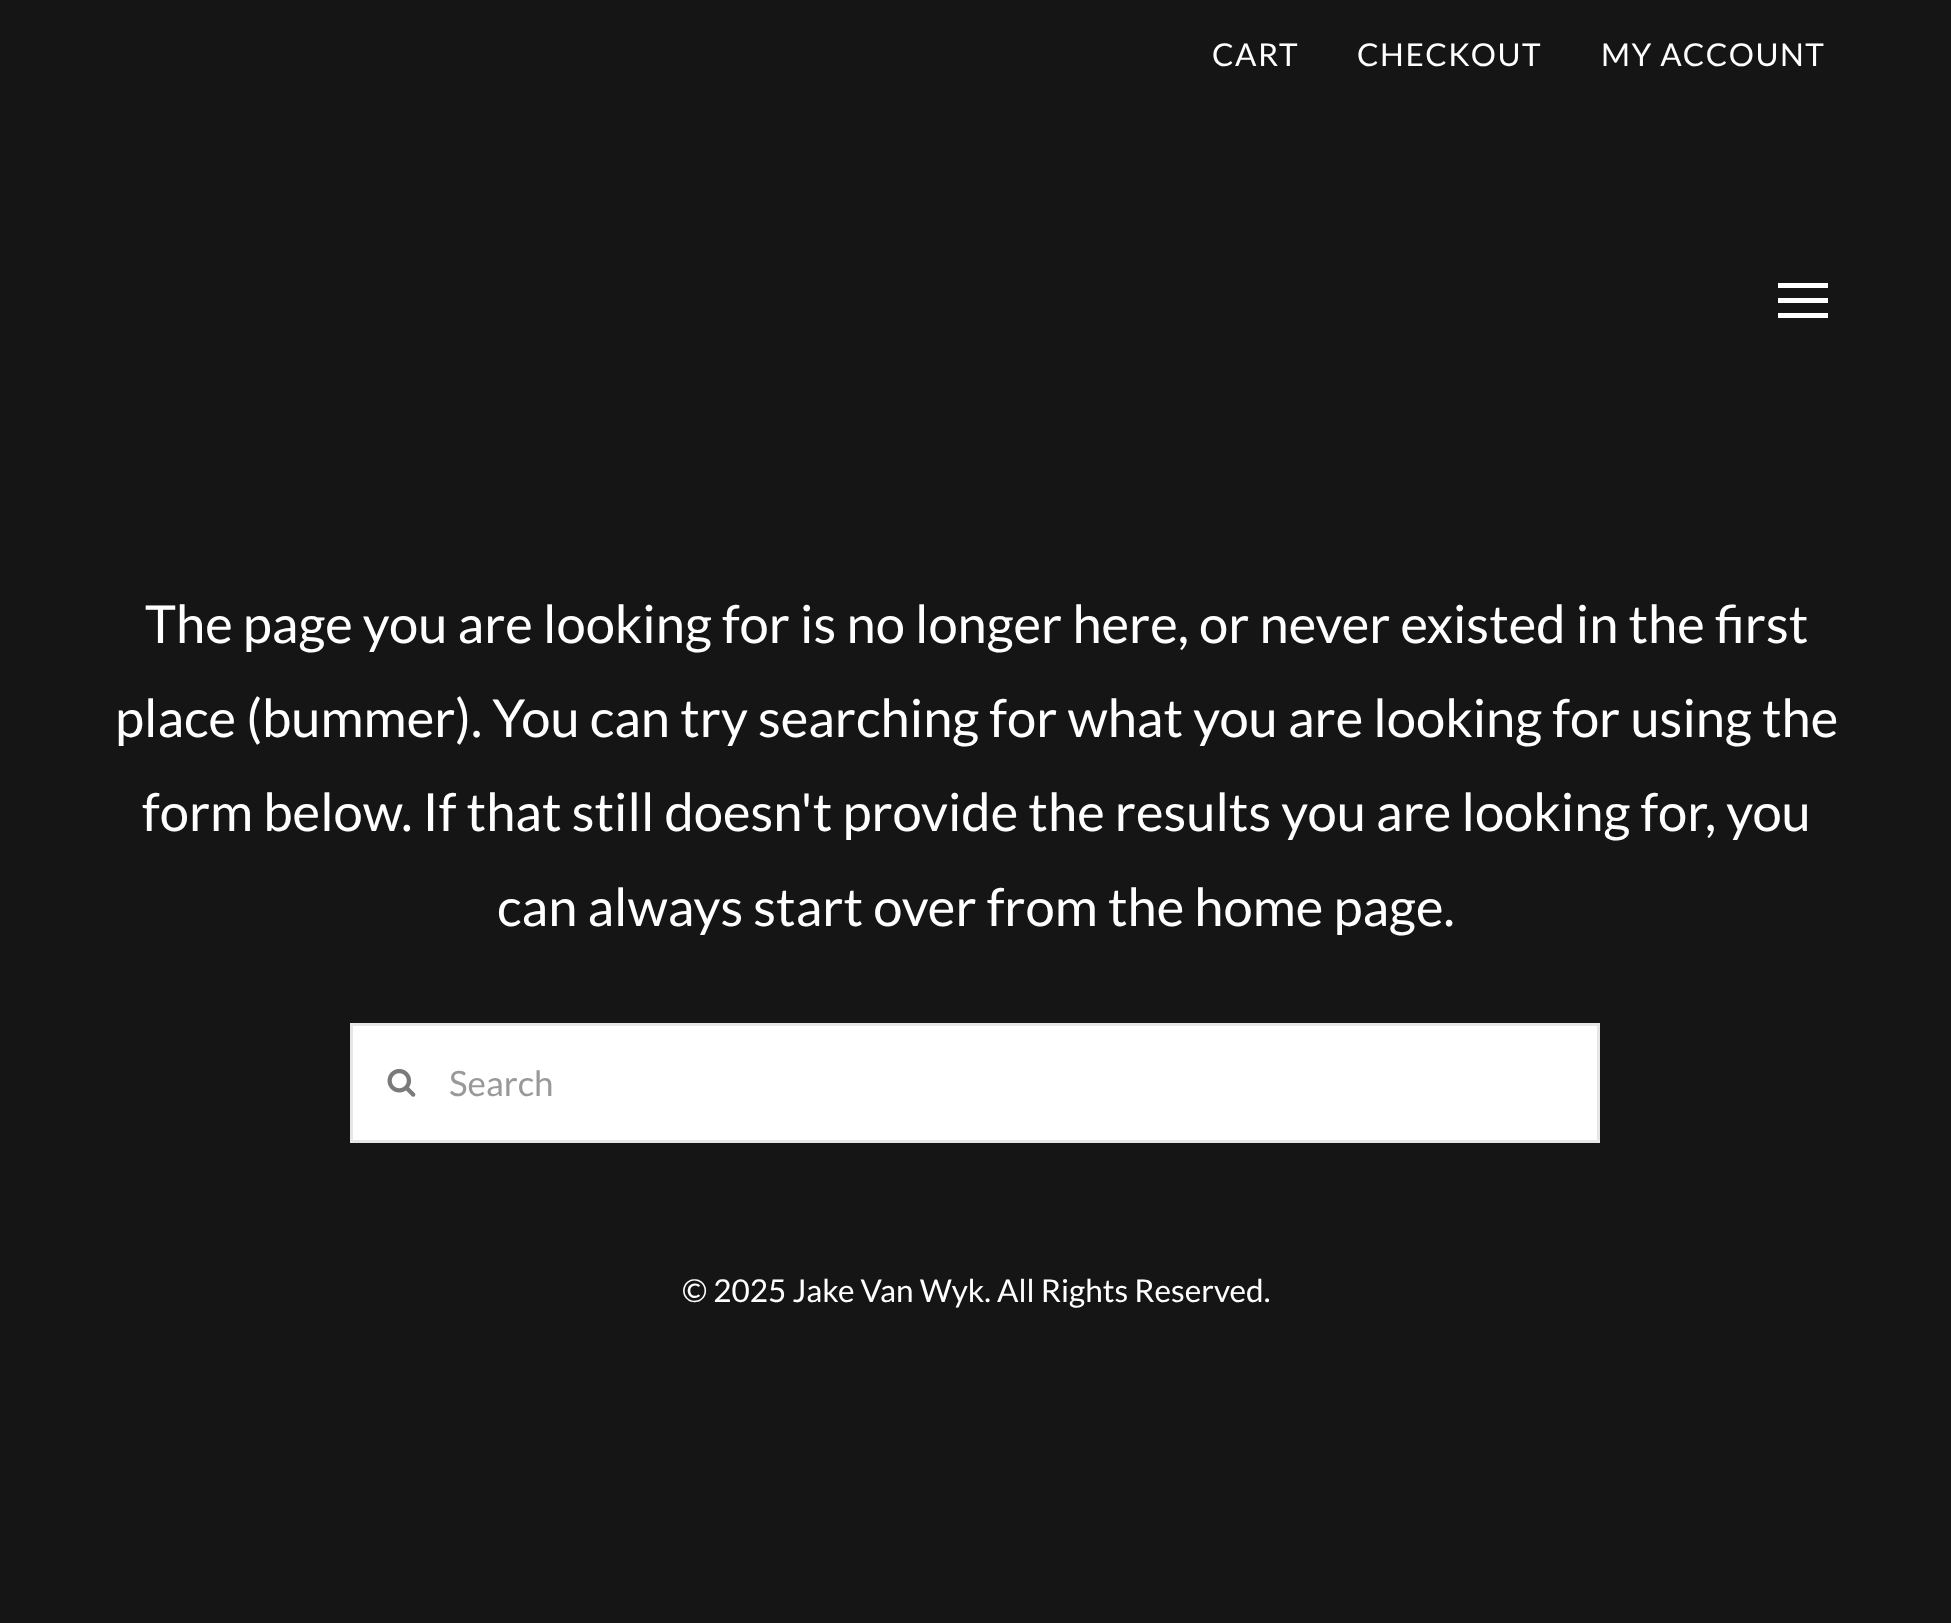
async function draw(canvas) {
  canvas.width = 1951;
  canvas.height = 1623;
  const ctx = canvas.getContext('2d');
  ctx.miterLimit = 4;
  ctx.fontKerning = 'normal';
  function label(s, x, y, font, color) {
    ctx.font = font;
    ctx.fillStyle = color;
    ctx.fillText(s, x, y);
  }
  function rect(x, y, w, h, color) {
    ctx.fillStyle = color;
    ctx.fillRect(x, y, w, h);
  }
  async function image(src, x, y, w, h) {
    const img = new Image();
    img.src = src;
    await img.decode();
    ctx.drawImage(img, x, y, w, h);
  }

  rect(0, 0, 1951, 1623, '#151515');
  ctx.letterSpacing = '1.5px';
  label('CART', 1212, 66, '31.5px Lato', '#fff');
  label('CHECKOUT', 1357, 66, '31.5px Lato', '#fff');
  label('MY ACCOUNT', 1601, 66, '31.5px Lato', '#fff');
  rect(1778, 283, 50, 5, '#fff');
  rect(1778, 298, 50, 5, '#fff');
  rect(1778, 313, 50, 5, '#fff');
  ctx.letterSpacing = '0px';
  label('The page you are looking for is no longer here, or never existed in the first', 145, 643, '52.5px Lato', '#fff');
  label('place (bummer). You can try searching for what you are looking for using the', 115, 737, '52.5px Lato', '#fff');
  label('form below. If that still doesn\'t provide the results you are looking for, you', 142, 831, '52.5px Lato', '#fff');
  label('can always start over from the home page.', 497, 926, '52.5px Lato', '#fff');
  ctx.beginPath();
  ctx.rect(351.5, 1024.5, 1247, 117);
  ctx.fill();
  ctx.strokeStyle = '#e6e6e6';
  ctx.lineWidth = 3;
  ctx.stroke();
  await image('assets/img1.png', 387, 1068, 29, 29);
  label('Search', 449, 1096, '35px Lato', '#999');
  label('© 2025 Jake Van Wyk. All Rights Reserved.', 682, 1302, '31.5px Lato', '#fff');
}

draw(document.querySelector('canvas'));
